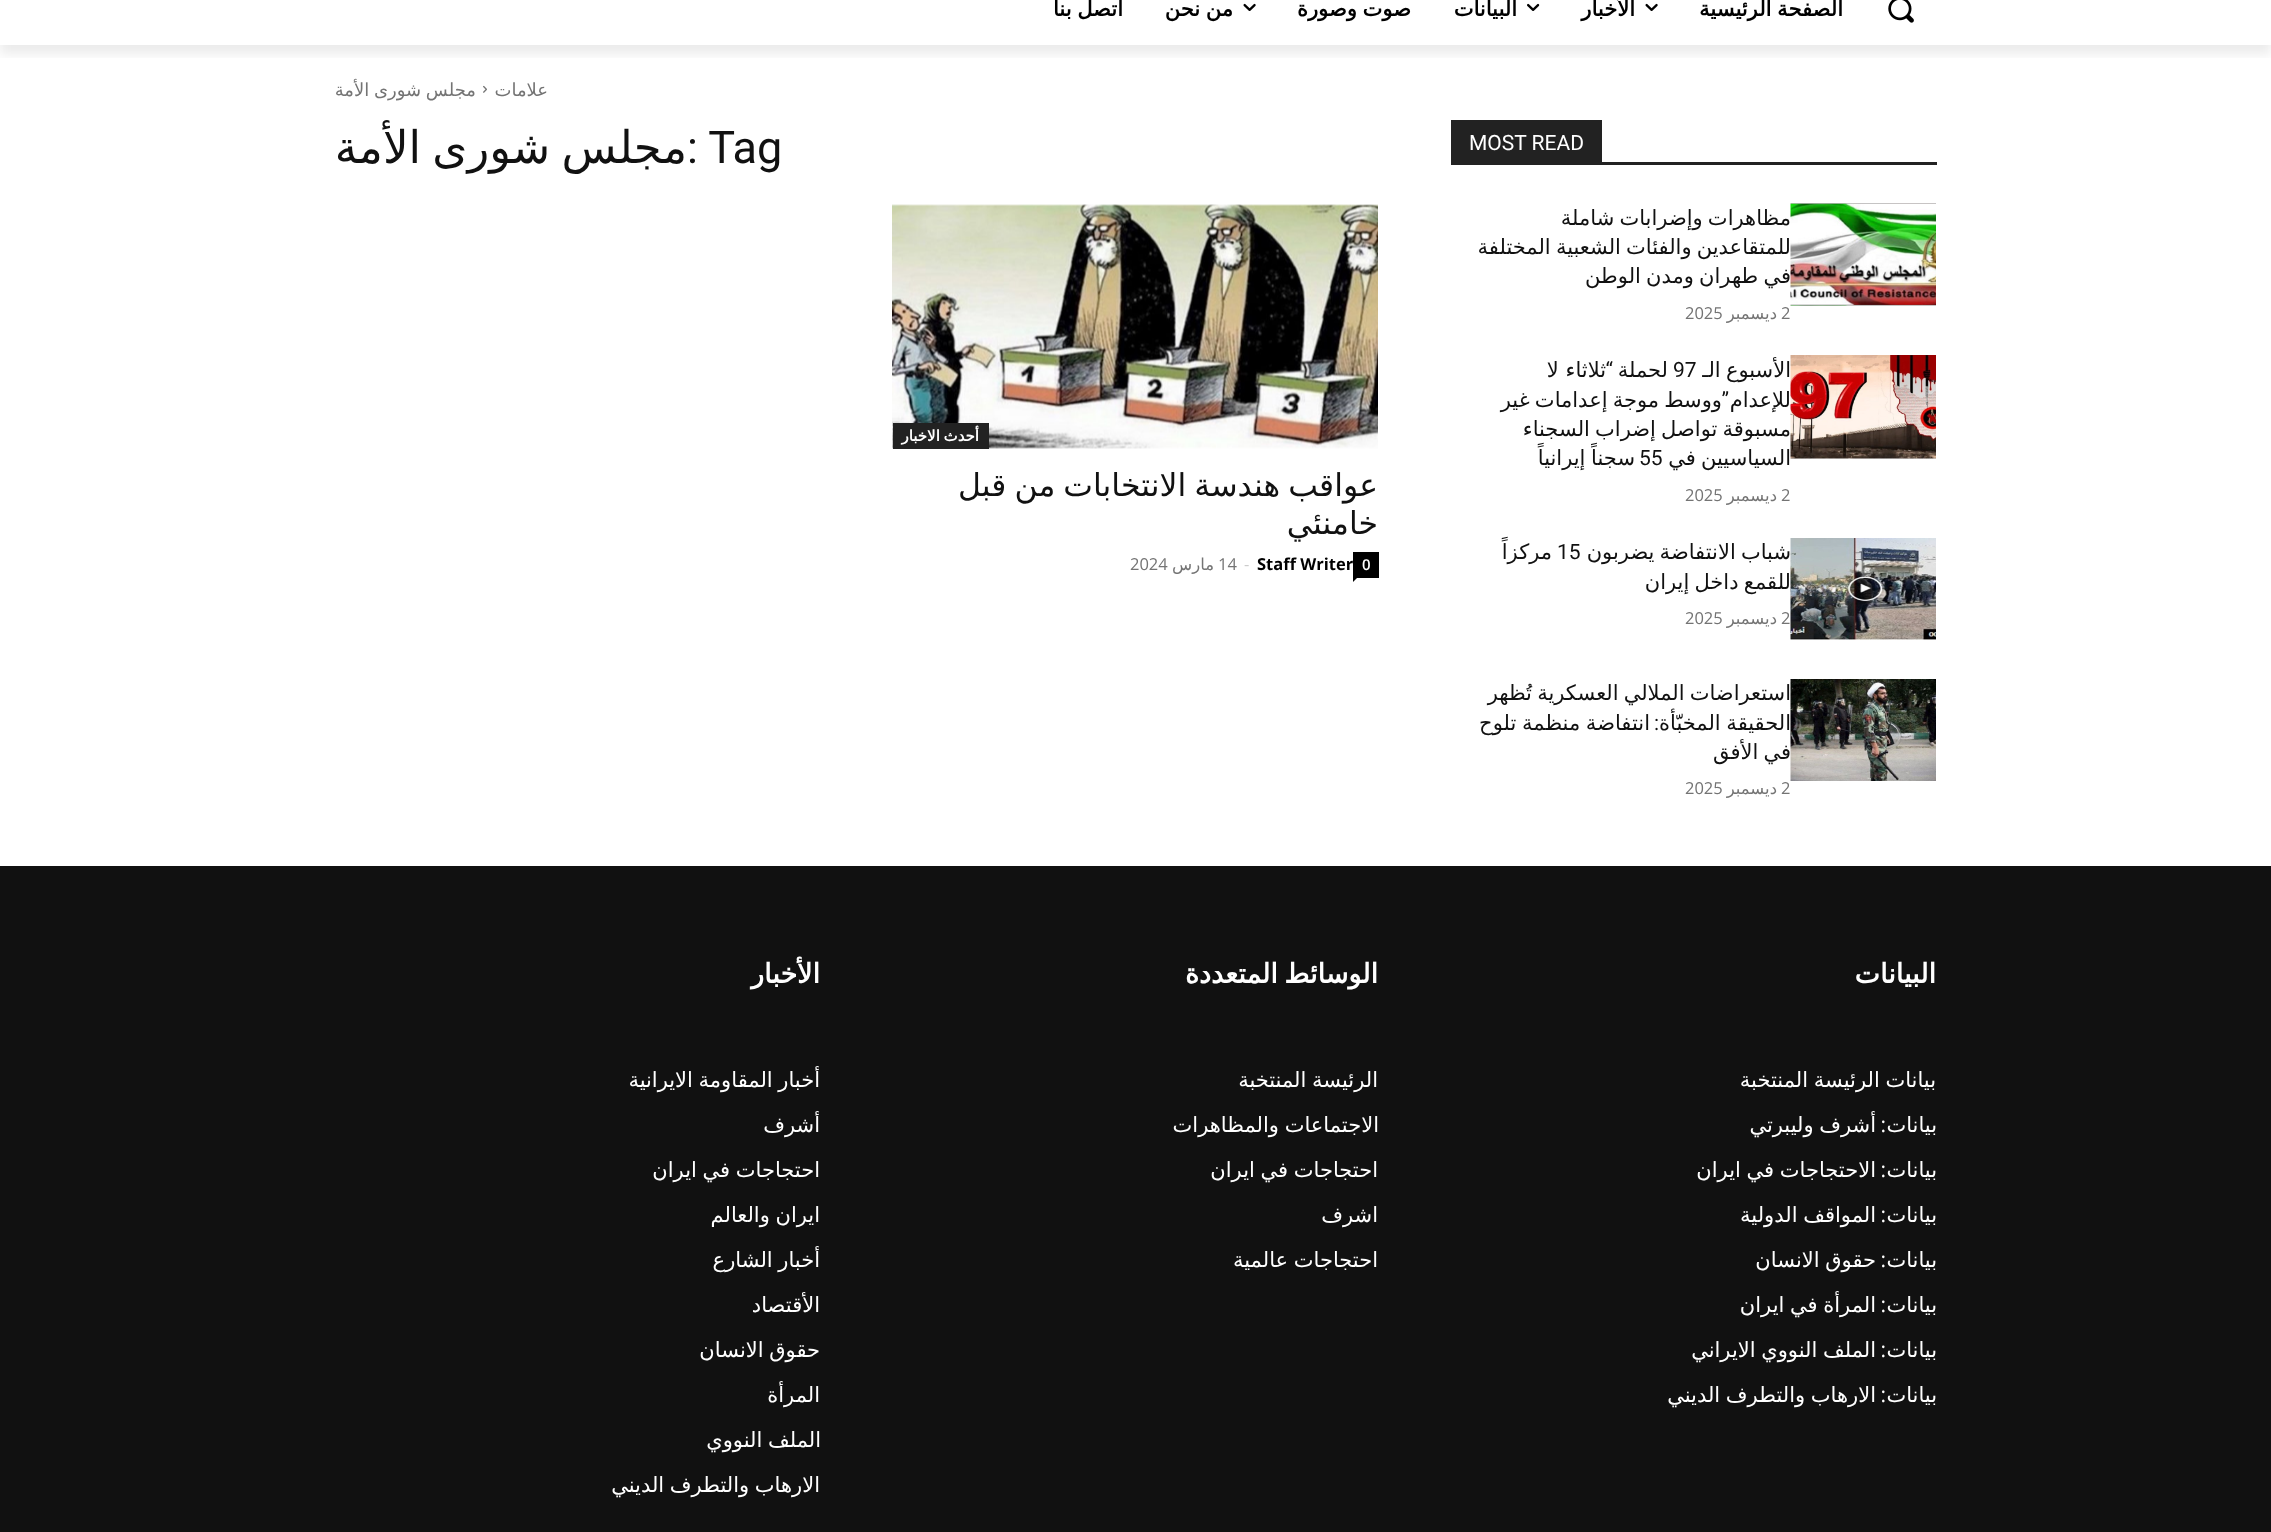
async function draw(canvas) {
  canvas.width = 2271;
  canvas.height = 1532;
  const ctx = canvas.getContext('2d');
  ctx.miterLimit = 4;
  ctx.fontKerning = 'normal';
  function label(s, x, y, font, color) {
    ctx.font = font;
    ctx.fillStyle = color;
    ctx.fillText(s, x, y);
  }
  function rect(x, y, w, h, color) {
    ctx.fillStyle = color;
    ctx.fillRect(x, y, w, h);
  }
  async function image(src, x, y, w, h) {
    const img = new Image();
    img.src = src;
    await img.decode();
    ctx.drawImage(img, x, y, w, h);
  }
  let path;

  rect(0, 0, 2271, 1532, '#fff');
  ctx.save();
  ctx.beginPath();
  ctx.rect(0, 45, 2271, 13);
  ctx.clip();
  ctx.fillStyle = '#00000014';
  ctx.filter = 'blur(6px)';
  ctx.beginPath();
  ctx.rect(0, -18, 2271, 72);
  ctx.fill();
  ctx.filter = 'none';
  ctx.restore();
  await image('assets/img1.png', 1888, 0, 26, 23);
  ctx.wordSpacing = '-1px';
  ctx.direction = 'rtl';
  label('الصفحة الرئيسية', 1843, 16, 'bold 21px DejaVu Sans', '#000');
  await image('assets/img2.png', 1645, 3, 13, 8);
  ctx.wordSpacing = '0px';
  label('الأخبار', 1635, 16, 'bold 21px DejaVu Sans', '#000');
  await image('assets/img3.png', 1527, 3, 13, 8);
  label('البيانات', 1517, 16, 'bold 21px DejaVu Sans', '#000');
  ctx.wordSpacing = '-1px';
  label('صوت وصورة', 1411, 16, 'bold 21px DejaVu Sans', '#000');
  await image('assets/img2.png', 1243, 3, 13, 8);
  label('من نحن', 1233, 16, 'bold 21px DejaVu Sans', '#000');
  label('اتصل بنا', 1123, 16, 'bold 21px DejaVu Sans', '#000');
  ctx.wordSpacing = '0px';
  label('علامات', 548, 96, '18px DejaVu Sans', '#747474');
  await image('assets/img4.png', 483, 85, 4, 8);
  ctx.wordSpacing = '-1px';
  label('مجلس شورى الأمة', 476, 96, '18px DejaVu Sans', '#747474');
  rect(1451, 162, 486, 3, '#222');
  rect(1451, 120, 151, 42, '#222');
  ctx.wordSpacing = '0px';
  ctx.direction = 'ltr';
  label('MOST READ', 1469, 150, '21px Roboto', '#fff');
  await image('assets/img5.png', 1790, 203, 146, 103);
  ctx.wordSpacing = '-1.5px';
  ctx.direction = 'rtl';
  label('مظاهرات وإضرابات شاملة', 1791, 225, '21px DejaVu Sans', '#111');
  label('للمتقاعدين والفئات الشعبية المختلفة', 1791, 254, '21px DejaVu Sans', '#111');
  label('في طهران ومدن الوطن', 1791, 283, '21px DejaVu Sans', '#111');
  ctx.wordSpacing = '0px';
  ctx.direction = 'ltr';
  label('2', 1781, 319, '16.5px Open Sans', '#747474');
  ctx.direction = 'rtl';
  label('ديسمبر', 1777, 319, '16.5px DejaVu Sans', '#747474');
  ctx.direction = 'ltr';
  label('2025', 1685, 319, '16.5px Open Sans', '#747474');
  await image('assets/img6.png', 1790, 355, 146, 104);
  ctx.wordSpacing = '-1.5px';
  ctx.direction = 'rtl';
  label('الأسبوع الـ', 1791, 377, '21px DejaVu Sans', '#111');
  ctx.wordSpacing = '0px';
  ctx.direction = 'ltr';
  label('97', 1673, 377, '21px Roboto', '#111');
  ctx.direction = 'rtl';
  label('لحملة', 1668, 377, '21px DejaVu Sans', '#111');
  label('“', 1613, 377, '21px Roboto', '#111');
  label('ثلاثاء لا', 1606, 377, '21px DejaVu Sans', '#111');
  label('للإعدام', 1791, 407, '21px DejaVu Sans', '#111');
  ctx.wordSpacing = '-1.5px';
  label('ووسط موجة إعدامات غير', 1722, 407, '21px DejaVu Sans', '#111');
  ctx.wordSpacing = '0px';
  label('”', 1729, 407, '21px Roboto', '#111');
  ctx.wordSpacing = '-1.5px';
  label('مسبوقة تواصل إضراب السجناء', 1791, 436, '21px DejaVu Sans', '#111');
  label('السياسيين في', 1791, 465, '21px DejaVu Sans', '#111');
  ctx.wordSpacing = '0px';
  ctx.direction = 'ltr';
  label('55', 1639, 465, '21px Roboto', '#111');
  ctx.wordSpacing = '-1px';
  ctx.direction = 'rtl';
  label('سجناً إيرانياً', 1635, 465, '21px DejaVu Sans', '#111');
  ctx.wordSpacing = '0px';
  ctx.direction = 'ltr';
  label('2', 1781, 501, '16.5px Open Sans', '#747474');
  ctx.direction = 'rtl';
  label('ديسمبر', 1777, 501, '16.5px DejaVu Sans', '#747474');
  ctx.direction = 'ltr';
  label('2025', 1685, 501, '16.5px Open Sans', '#747474');
  await image('assets/img7.png', 1790, 538, 146, 102);
  ctx.wordSpacing = '-1.5px';
  ctx.direction = 'rtl';
  label('شباب الانتفاضة يضربون', 1791, 559, '21px DejaVu Sans', '#111');
  ctx.wordSpacing = '0px';
  ctx.direction = 'ltr';
  label('15', 1557, 559, '21px Roboto', '#111');
  ctx.direction = 'rtl';
  label('مركزاً', 1552, 559, '21px DejaVu Sans', '#111');
  ctx.wordSpacing = '-1.5px';
  label('للقمع داخل إيران', 1791, 589, '21px DejaVu Sans', '#111');
  ctx.wordSpacing = '0px';
  ctx.direction = 'ltr';
  label('2', 1781, 624, '16.5px Open Sans', '#747474');
  ctx.direction = 'rtl';
  label('ديسمبر', 1777, 624, '16.5px DejaVu Sans', '#747474');
  ctx.direction = 'ltr';
  label('2025', 1685, 624, '16.5px Open Sans', '#747474');
  await image('assets/img8.png', 1790, 679, 146, 102);
  ctx.wordSpacing = '-1.5px';
  ctx.direction = 'rtl';
  label('استعراضات الملالي العسكرية تُظهر', 1791, 700, '21px DejaVu Sans', '#111');
  ctx.wordSpacing = '-1px';
  label('الحقيقة المخبّأة', 1791, 730, '21px DejaVu Sans', '#111');
  ctx.wordSpacing = '0px';
  label(':', 1659, 730, '21px Roboto', '#111');
  ctx.wordSpacing = '-1px';
  label('انتفاضة منظمة تلوح', 1650, 730, '21px DejaVu Sans', '#111');
  ctx.wordSpacing = '-1.5px';
  label('في الأفق', 1791, 759, '21px DejaVu Sans', '#111');
  ctx.wordSpacing = '0px';
  ctx.direction = 'ltr';
  label('2', 1781, 794, '16.5px Open Sans', '#747474');
  ctx.direction = 'rtl';
  label('ديسمبر', 1777, 794, '16.5px DejaVu Sans', '#747474');
  ctx.direction = 'ltr';
  label('2025', 1685, 794, '16.5px Open Sans', '#747474');
  label(': Tag', 687, 163, '45px Roboto', '#111');
  ctx.wordSpacing = '-3px';
  ctx.direction = 'rtl';
  label('مجلس شورى الأمة', 687, 163, '45px DejaVu Sans', '#111');
  await image('assets/img9.png', 892, 204, 486, 245);
  rect(893, 423, 96, 26, '#222');
  ctx.wordSpacing = '-1px';
  label('أحدث الاخبار', 979, 441, 'bold 15px DejaVu Sans', '#fff');
  ctx.wordSpacing = '-2px';
  label('عواقب هندسة الانتخابات من قبل', 1378, 496, '31.5px DejaVu Sans', '#111');
  ctx.wordSpacing = '0px';
  label('خامنئي', 1378, 534, '31.5px DejaVu Sans', '#111');
  rect(1353, 552, 26, 26, '#000');
  ctx.direction = 'ltr';
  label('0', 1362, 570, '600 15px Open Sans', '#fff');
  ctx.fillStyle = '#000';
  path = new Path2D('M1353 577.5H1357.5L1353 582Z');
  ctx.fill(path);
  label('Staff Writer', 1257, 570, 'bold 16.5px Open Sans', '#000');
  label('-', 1244, 570, '16.5px Open Sans', '#ccc');
  label('14', 1218, 570, '16.5px Open Sans', '#747474');
  ctx.direction = 'rtl';
  label('مارس', 1214, 570, '16.5px DejaVu Sans', '#747474');
  ctx.direction = 'ltr';
  label('2024', 1130, 570, '16.5px Open Sans', '#747474');
  rect(0, 866, 2271, 666, '#111');
  ctx.direction = 'rtl';
  label('البيانات', 1936, 983, 'bold 27px DejaVu Sans', '#fff');
  ctx.wordSpacing = '-1px';
  label('بيانات الرئيسة المنتخبة', 1936, 1087, '21px DejaVu Sans', '#fff');
  ctx.wordSpacing = '0px';
  label('بيانات', 1937, 1132, '21px DejaVu Sans', '#fff');
  label(':', 1886, 1132, '21px Open Sans', '#fff');
  ctx.wordSpacing = '-1px';
  label('أشرف وليبرتي', 1876, 1132, '21px DejaVu Sans', '#fff');
  ctx.wordSpacing = '0px';
  label('بيانات', 1937, 1177, '21px DejaVu Sans', '#fff');
  label(':', 1886, 1177, '21px Open Sans', '#fff');
  ctx.wordSpacing = '-1px';
  label('الاحتجاجات في ايران', 1876, 1177, '21px DejaVu Sans', '#fff');
  ctx.wordSpacing = '0px';
  label('بيانات', 1937, 1222, '21px DejaVu Sans', '#fff');
  label(':', 1886, 1222, '21px Open Sans', '#fff');
  ctx.wordSpacing = '-1px';
  label('المواقف الدولية', 1876, 1222, '21px DejaVu Sans', '#fff');
  ctx.wordSpacing = '0px';
  label('بيانات', 1937, 1267, '21px DejaVu Sans', '#fff');
  label(':', 1886, 1267, '21px Open Sans', '#fff');
  ctx.wordSpacing = '-1px';
  label('حقوق الانسان', 1876, 1267, '21px DejaVu Sans', '#fff');
  ctx.wordSpacing = '0px';
  label('بيانات', 1937, 1312, '21px DejaVu Sans', '#fff');
  label(':', 1886, 1312, '21px Open Sans', '#fff');
  ctx.wordSpacing = '-1px';
  label('المرأة في ايران', 1876, 1312, '21px DejaVu Sans', '#fff');
  ctx.wordSpacing = '0px';
  label('بيانات', 1937, 1357, '21px DejaVu Sans', '#fff');
  label(':', 1886, 1357, '21px Open Sans', '#fff');
  ctx.wordSpacing = '-1px';
  label('الملف النووي الايراني', 1876, 1357, '21px DejaVu Sans', '#fff');
  ctx.wordSpacing = '0px';
  label('بيانات', 1937, 1402, '21px DejaVu Sans', '#fff');
  label(':', 1886, 1402, '21px Open Sans', '#fff');
  ctx.wordSpacing = '-1px';
  label('الارهاب والتطرف الديني', 1876, 1402, '21px DejaVu Sans', '#fff');
  ctx.wordSpacing = '-2px';
  label('الوسائط المتعددة', 1378, 983, 'bold 27px DejaVu Sans', '#fff');
  ctx.wordSpacing = '-1px';
  label('الرئيسة المنتخبة', 1378, 1087, '21px DejaVu Sans', '#fff');
  label('الاجتماعات والمظاهرات', 1379, 1132, '21px DejaVu Sans', '#fff');
  label('احتجاجات في ايران', 1378, 1177, '21px DejaVu Sans', '#fff');
  ctx.wordSpacing = '0px';
  label('اشرف', 1378, 1222, '21px DejaVu Sans', '#fff');
  ctx.wordSpacing = '-1px';
  label('احتجاجات عالمية', 1378, 1267, '21px DejaVu Sans', '#fff');
  ctx.wordSpacing = '0px';
  label('الأخبار', 820, 983, 'bold 27px DejaVu Sans', '#fff');
  ctx.save();
  ctx.beginPath();
  ctx.rect(335, 1037, 486, 492);
  ctx.clip();
  ctx.wordSpacing = '-1px';
  label('أخبار المقاومة الايرانية', 820, 1087, '21px DejaVu Sans', '#fff');
  ctx.restore();
  label('أشرف', 820, 1132, '21px DejaVu Sans', '#fff');
  ctx.wordSpacing = '-1px';
  label('احتجاجات في ايران', 820, 1177, '21px DejaVu Sans', '#fff');
  label('ايران والعالم', 820, 1222, '21px DejaVu Sans', '#fff');
  label('أخبار الشارع', 820, 1267, '21px DejaVu Sans', '#fff');
  ctx.wordSpacing = '0px';
  label('الأقتصاد', 820, 1312, '21px DejaVu Sans', '#fff');
  ctx.wordSpacing = '-1px';
  label('حقوق الانسان', 820, 1357, '21px DejaVu Sans', '#fff');
  ctx.wordSpacing = '0px';
  label('المرأة', 820, 1402, '21px DejaVu Sans', '#fff');
  ctx.wordSpacing = '-1px';
  label('الملف النووي', 821, 1447, '21px DejaVu Sans', '#fff');
  label('الارهاب والتطرف الديني', 820, 1492, '21px DejaVu Sans', '#fff');
}

draw(document.querySelector('canvas'));
